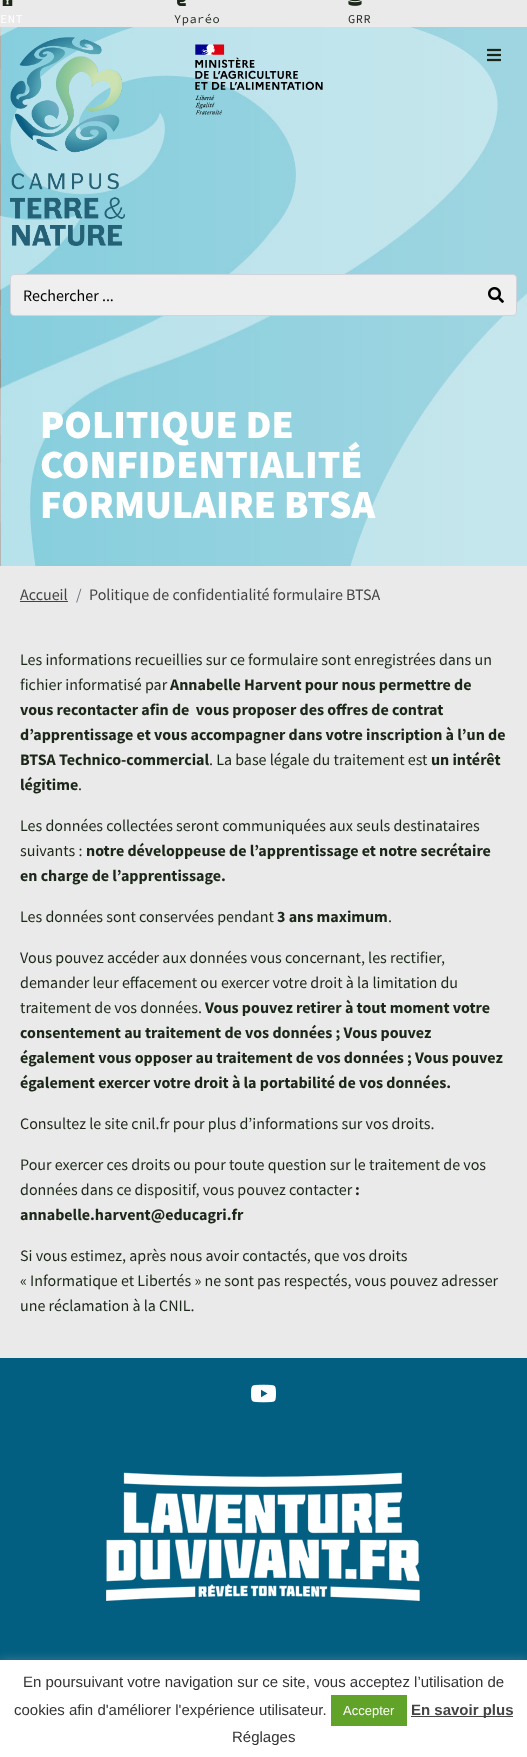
async function draw(canvas) {
  canvas.width = 527;
  canvas.height = 1757;
  const ctx = canvas.getContext('2d');
  ctx.miterLimit = 4;
  ctx.fontKerning = 'normal';
  function label(s, x, y, font, color) {
    ctx.font = font;
    ctx.fillStyle = color;
    ctx.fillText(s, x, y);
  }
  function rect(x, y, w, h, color) {
    ctx.fillStyle = color;
    ctx.fillRect(x, y, w, h);
  }
  async function image(src, x, y, w, h) {
    const img = new Image();
    img.src = src;
    await img.decode();
    ctx.drawImage(img, x, y, w, h);
  }

  rect(0, 0, 527, 1757, '#ebeaea');
  await image('assets/img1.png', 2, 0, 11, 6);
  ctx.letterSpacing = '0.5px';
  label('ENT', 0, 23, '12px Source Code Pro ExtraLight', '#fff');
  await image('assets/img2.png', 177, 0, 9, 6);
  label('Yparéo', 174, 23, '12px Source Code Pro ExtraLight', '#1b2718');
  await image('assets/img3.png', 348, 0, 14, 6);
  label('GRR', 348, 23, '12px Source Code Pro ExtraLight', '#1b2718');
  await image('assets/img4.png', 0, 27, 527, 539);
  await image('assets/img5.png', 10, 37, 115, 209);
  await image('assets/img6.png', 195, 44, 128, 71);
  await image('assets/img7.png', 487, 48, 14, 14);
  ctx.fillStyle = '#efefef';
  ctx.beginPath();
  ctx.roundRect(10.5, 274.5, 506, 41, 3.5);
  ctx.fill();
  ctx.strokeStyle = '#ced4da';
  ctx.stroke();
  ctx.letterSpacing = '0px';
  label('Rechercher ...', 23, 301, '16px Source Sans Pro', '#000');
  await image('assets/img8.png', 488, 287, 16, 16);
  label('POLITIQUE DE', 40, 438, '900 40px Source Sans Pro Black', '#fff');
  label('CONFIDENTIALITÉ', 40, 478, '900 40px Source Sans Pro Black', '#fff');
  label('FORMULAIRE BTSA', 40, 518, '900 40px Source Sans Pro Black', '#fff');
  label('Accueil', 20, 600, '16px Source Sans Pro', '#444');
  rect(20, 601, 48, 1, '#444');
  label('/', 76, 600, '16px Source Sans Pro', '#6c757d');
  label('Politique de confidentialité formulaire BTSA', 89, 600, '16px Source Sans Pro', '#444');
  label('Les informations recueillies sur ce formulaire sont enregistrées dans un', 20, 665, '16px Source Sans Pro', '#1b2718');
  label('fichier informatisé par', 20, 690, '16px Source Sans Pro', '#1b2718');
  label('Annabelle Harvent pour nous permettre de', 170, 690, 'bold 16px Source Sans Pro', '#1b2718');
  label('vous recontacter afin de  vous proposer des offres de contrat', 20, 715, 'bold 16px Source Sans Pro', '#1b2718');
  label('d’apprentissage et vous accompagner dans votre inscription à l’un de', 20, 740, 'bold 16px Source Sans Pro', '#1b2718');
  label('BTSA Technico-commercial', 20, 765, 'bold 16px Source Sans Pro', '#1b2718');
  label('. La base légale du traitement est', 209, 765, '16px Source Sans Pro', '#1b2718');
  label('un intérêt', 431, 765, 'bold 16px Source Sans Pro', '#1b2718');
  label('légitime', 20, 790, 'bold 16px Source Sans Pro', '#1b2718');
  label('.', 78, 790, '16px Source Sans Pro', '#1b2718');
  label('Les données collectées seront communiquées aux seuls destinataires', 20, 831, '16px Source Sans Pro', '#1b2718');
  label('suivants :', 20, 856, '16px Source Sans Pro', '#1b2718');
  label('notre développeuse de l’apprentissage et notre secrétaire', 86, 856, 'bold 16px Source Sans Pro', '#1b2718');
  label('en charge de l’apprentissage.', 20, 881, 'bold 16px Source Sans Pro', '#1b2718');
  label('Les données sont conservées pendant', 20, 922, '16px Source Sans Pro', '#1b2718');
  label('3 ans maximum', 277, 922, 'bold 16px Source Sans Pro', '#1b2718');
  label('.', 388, 922, '16px Source Sans Pro', '#1b2718');
  label('Vous pouvez accéder aux données vous concernant, les rectifier,', 20, 963, '16px Source Sans Pro', '#1b2718');
  label('demander leur effacement ou exercer votre droit à la limitation du', 20, 988, '16px Source Sans Pro', '#1b2718');
  label('traitement de vos données.', 20, 1013, '16px Source Sans Pro', '#1b2718');
  label('Vous pouvez retirer à tout moment votre', 205, 1013, 'bold 16px Source Sans Pro', '#1b2718');
  label('consentement au traitement de vos données ; Vous pouvez', 20, 1038, 'bold 16px Source Sans Pro', '#1b2718');
  label('également vous opposer au traitement de vos données ; Vous pouvez', 20, 1063, 'bold 16px Source Sans Pro', '#1b2718');
  label('également exercer votre droit à la portabilité de vos données.', 20, 1088, 'bold 16px Source Sans Pro', '#1b2718');
  label('Consultez le site cnil.fr pour plus d’informations sur vos droits.', 20, 1129, '16px Source Sans Pro', '#1b2718');
  label('Pour exercer ces droits ou pour toute question sur le traitement de vos', 20, 1170, '16px Source Sans Pro', '#1b2718');
  label('données dans ce dispositif, vous pouvez contacter', 20, 1195, '16px Source Sans Pro', '#1b2718');
  label(':', 355, 1195, 'bold 16px Source Sans Pro', '#1b2718');
  label('annabelle.harvent@educagri.fr', 20, 1220, 'bold 16px Source Sans Pro', '#1b2718');
  label('Si vous estimez, après nous avoir contactés, que vos droits', 20, 1261, '16px Source Sans Pro', '#1b2718');
  label('« Informatique et Libertés » ne sont pas respectés, vous pouvez adresser', 20, 1286, '16px Source Sans Pro', '#1b2718');
  label('une réclamation à la CNIL.', 20, 1311, '16px Source Sans Pro', '#1b2718');
  rect(0, 1358, 527, 302, '#035f82');
  await image('assets/img9.png', 251, 1384, 25, 19);
  await image('assets/img10.png', 106, 1472, 314, 129);
  ctx.fillStyle = '#acabab4d';
  ctx.filter = 'blur(5px)';
  ctx.beginPath();
  ctx.rect(0, 1659, 527, 97);
  ctx.fill();
  ctx.filter = 'none';
  rect(0, 1660, 527, 97, '#fff');
  label('En poursuivant votre navigation sur ce site, vous acceptez l’utilisation de', 23, 1687, '15px Liberation Sans', '#333');
  label('cookies afin d\'améliorer l\'expérience utilisateur.', 14, 1715, '15px Liberation Sans', '#333');
  rect(331, 1695, 76, 31, '#61a229');
  label('Accepter', 343, 1715, '13px Liberation Sans', '#fff');
  rect(411, 1716, 102, 1, '#444');
  label('En savoir plus', 411, 1715, 'bold 15px Liberation Sans', '#444');
  label('Réglages', 232, 1742, '15px Liberation Sans', '#333');
}

draw(document.querySelector('canvas'));
